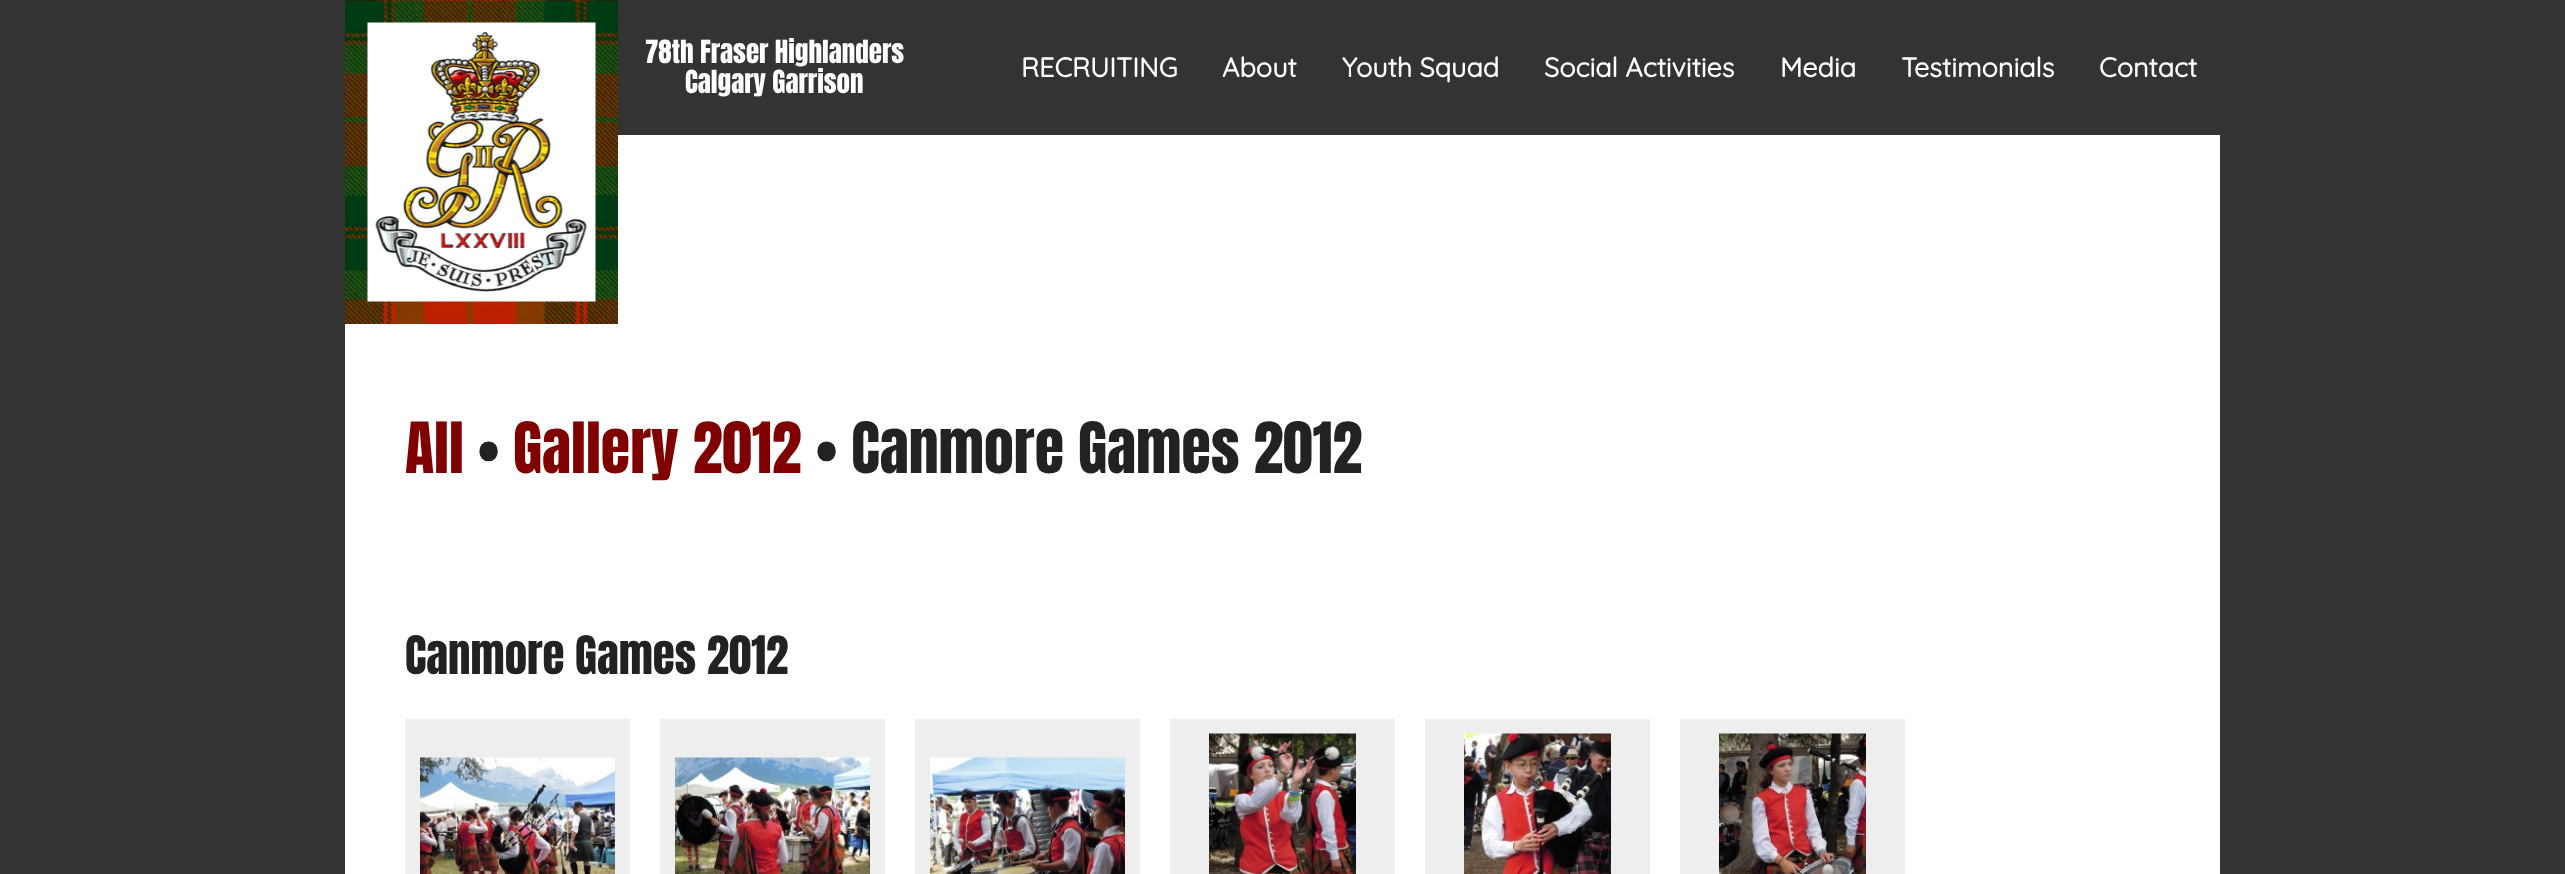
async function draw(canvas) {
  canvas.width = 2565;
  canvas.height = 874;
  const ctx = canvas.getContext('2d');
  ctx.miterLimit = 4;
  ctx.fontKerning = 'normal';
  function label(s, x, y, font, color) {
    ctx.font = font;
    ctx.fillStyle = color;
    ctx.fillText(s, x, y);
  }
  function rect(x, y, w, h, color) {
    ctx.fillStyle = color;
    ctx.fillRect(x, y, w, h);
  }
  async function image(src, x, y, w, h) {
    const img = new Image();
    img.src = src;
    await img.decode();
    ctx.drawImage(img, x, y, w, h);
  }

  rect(0, 0, 2565, 874, '#333');
  rect(345, 135, 1875, 739, '#fff');
  await image('assets/img1.png', 345, 0, 273, 324);
  await image('assets/img2.png', 367, 22, 229, 280);
  label('78th Fraser Highlanders', 645, 63, '27px Anton', '#fff');
  label('Calgary Garrison', 685, 93, '27px Anton', '#fff');
  label('RECRUITING', 1021, 77, 'bold 27px Quicksand', '#fff');
  label('About', 1222, 77, 'bold 27px Quicksand', '#fff');
  label('Youth Squad', 1342, 77, 'bold 27px Quicksand', '#fff');
  label('Social Activities', 1544, 77, 'bold 27px Quicksand', '#fff');
  label('Media', 1780, 77, 'bold 27px Quicksand', '#fff');
  label('Testimonials', 1901, 77, 'bold 27px Quicksand', '#fff');
  label('Contact', 2099, 77, 'bold 27px Quicksand', '#fff');
  label('All', 405, 473, '60px Anton', '#800000');
  label('•', 478, 473, '60px Anton', '#222');
  label('Gallery 2012', 513, 473, '60px Anton', '#800000');
  label('• Canmore Games 2012', 816, 473, '60px Anton', '#222');
  label('Canmore Games 2012', 405, 674, '45px Anton', '#222');
  rect(405, 719, 225, 155, '#eee');
  await image('assets/img3.png', 420, 757, 195, 117);
  rect(660, 719, 225, 155, '#eee');
  await image('assets/img4.png', 675, 757, 195, 117);
  rect(915, 719, 225, 155, '#eee');
  await image('assets/img5.png', 930, 757, 195, 117);
  rect(1170, 719, 225, 155, '#eee');
  await image('assets/img6.png', 1209, 733, 147, 141);
  rect(1425, 719, 225, 155, '#eee');
  await image('assets/img7.png', 1464, 733, 147, 141);
  rect(1680, 719, 225, 155, '#eee');
  await image('assets/img8.png', 1719, 733, 147, 141);
}

draw(document.querySelector('canvas'));
